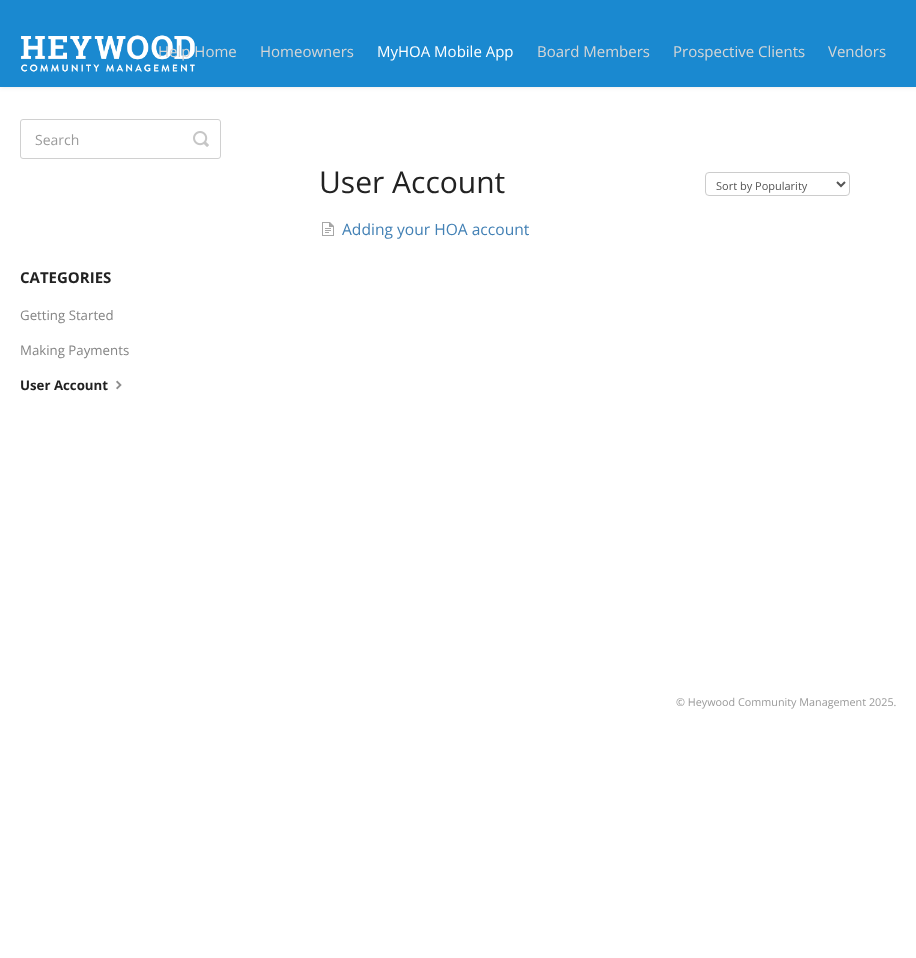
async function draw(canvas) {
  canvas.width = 916;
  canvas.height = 958;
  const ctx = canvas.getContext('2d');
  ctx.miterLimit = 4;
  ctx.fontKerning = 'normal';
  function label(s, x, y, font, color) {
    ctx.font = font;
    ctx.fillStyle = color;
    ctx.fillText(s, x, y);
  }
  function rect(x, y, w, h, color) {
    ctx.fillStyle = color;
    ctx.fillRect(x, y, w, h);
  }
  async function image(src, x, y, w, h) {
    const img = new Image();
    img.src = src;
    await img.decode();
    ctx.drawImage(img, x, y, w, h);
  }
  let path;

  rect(0, 0, 916, 958, '#fff');
  ctx.fillStyle = '#00000012';
  ctx.filter = 'blur(2px)';
  ctx.beginPath();
  ctx.rect(0, 1, 916, 87);
  ctx.fill();
  ctx.filter = 'none';
  rect(0, 0, 916, 87, '#1a89d0');
  await image('assets/img1.png', 20, 35, 175, 37);
  label('Help Home', 158, 57, '15px Open Sans', '#d6d6d6');
  label('Homeowners', 260, 57, '15px Open Sans', '#d6d6d6');
  label('MyHOA Mobile App', 377, 57, '15px Open Sans', '#fff');
  label('Board Members', 537, 57, '15px Open Sans', '#d6d6d6');
  label('Prospective Clients', 673, 57, '15px Open Sans', '#d6d6d6');
  label('Vendors', 828, 57, '15px Open Sans', '#d6d6d6');
  ctx.beginPath();
  ctx.roundRect(20.5, 119.5, 200, 39, 2.5);
  ctx.strokeStyle = '#d0d0d0';
  ctx.stroke();
  label('Search', 35, 145, '14px Open Sans', '#9b9b9b');
  await image('assets/img2.png', 193, 131, 16, 16);
  label('CATEGORIES', 20, 283, 'bold 15px Open Sans', '#222');
  label('Getting Started', 20, 320, '13.25px Open Sans', '#858585');
  label('Making Payments', 20, 355, '13.25px Open Sans', '#858585');
  label('User Account', 20, 390, 'bold 13.25px Open Sans', '#222');
  await image('assets/img3.png', 116, 380, 6, 10);
  label('User Account', 319, 193, '30px Open Sans', '#222');
  ctx.beginPath();
  ctx.roundRect(705.5, 172.5, 144, 23, 3.5);
  ctx.strokeStyle = '#ccc';
  ctx.stroke();
  path = new Path2D('M837 182L841 186L845 182');
  ctx.strokeStyle = '#555';
  ctx.lineWidth = 2;
  ctx.stroke(path);
  label('Sort by Popularity', 716, 190, '11px Open Sans', '#555');
  await image('assets/img4.png', 322, 222, 12, 14);
  label('Adding your HOA account', 342, 235, '15.6px Open Sans', '#4381b5');
  label('© Heywood Community Management 2025.', 676, 706, '10.8px Open Sans', '#9b9b9b');
}

draw(document.querySelector('canvas'));
